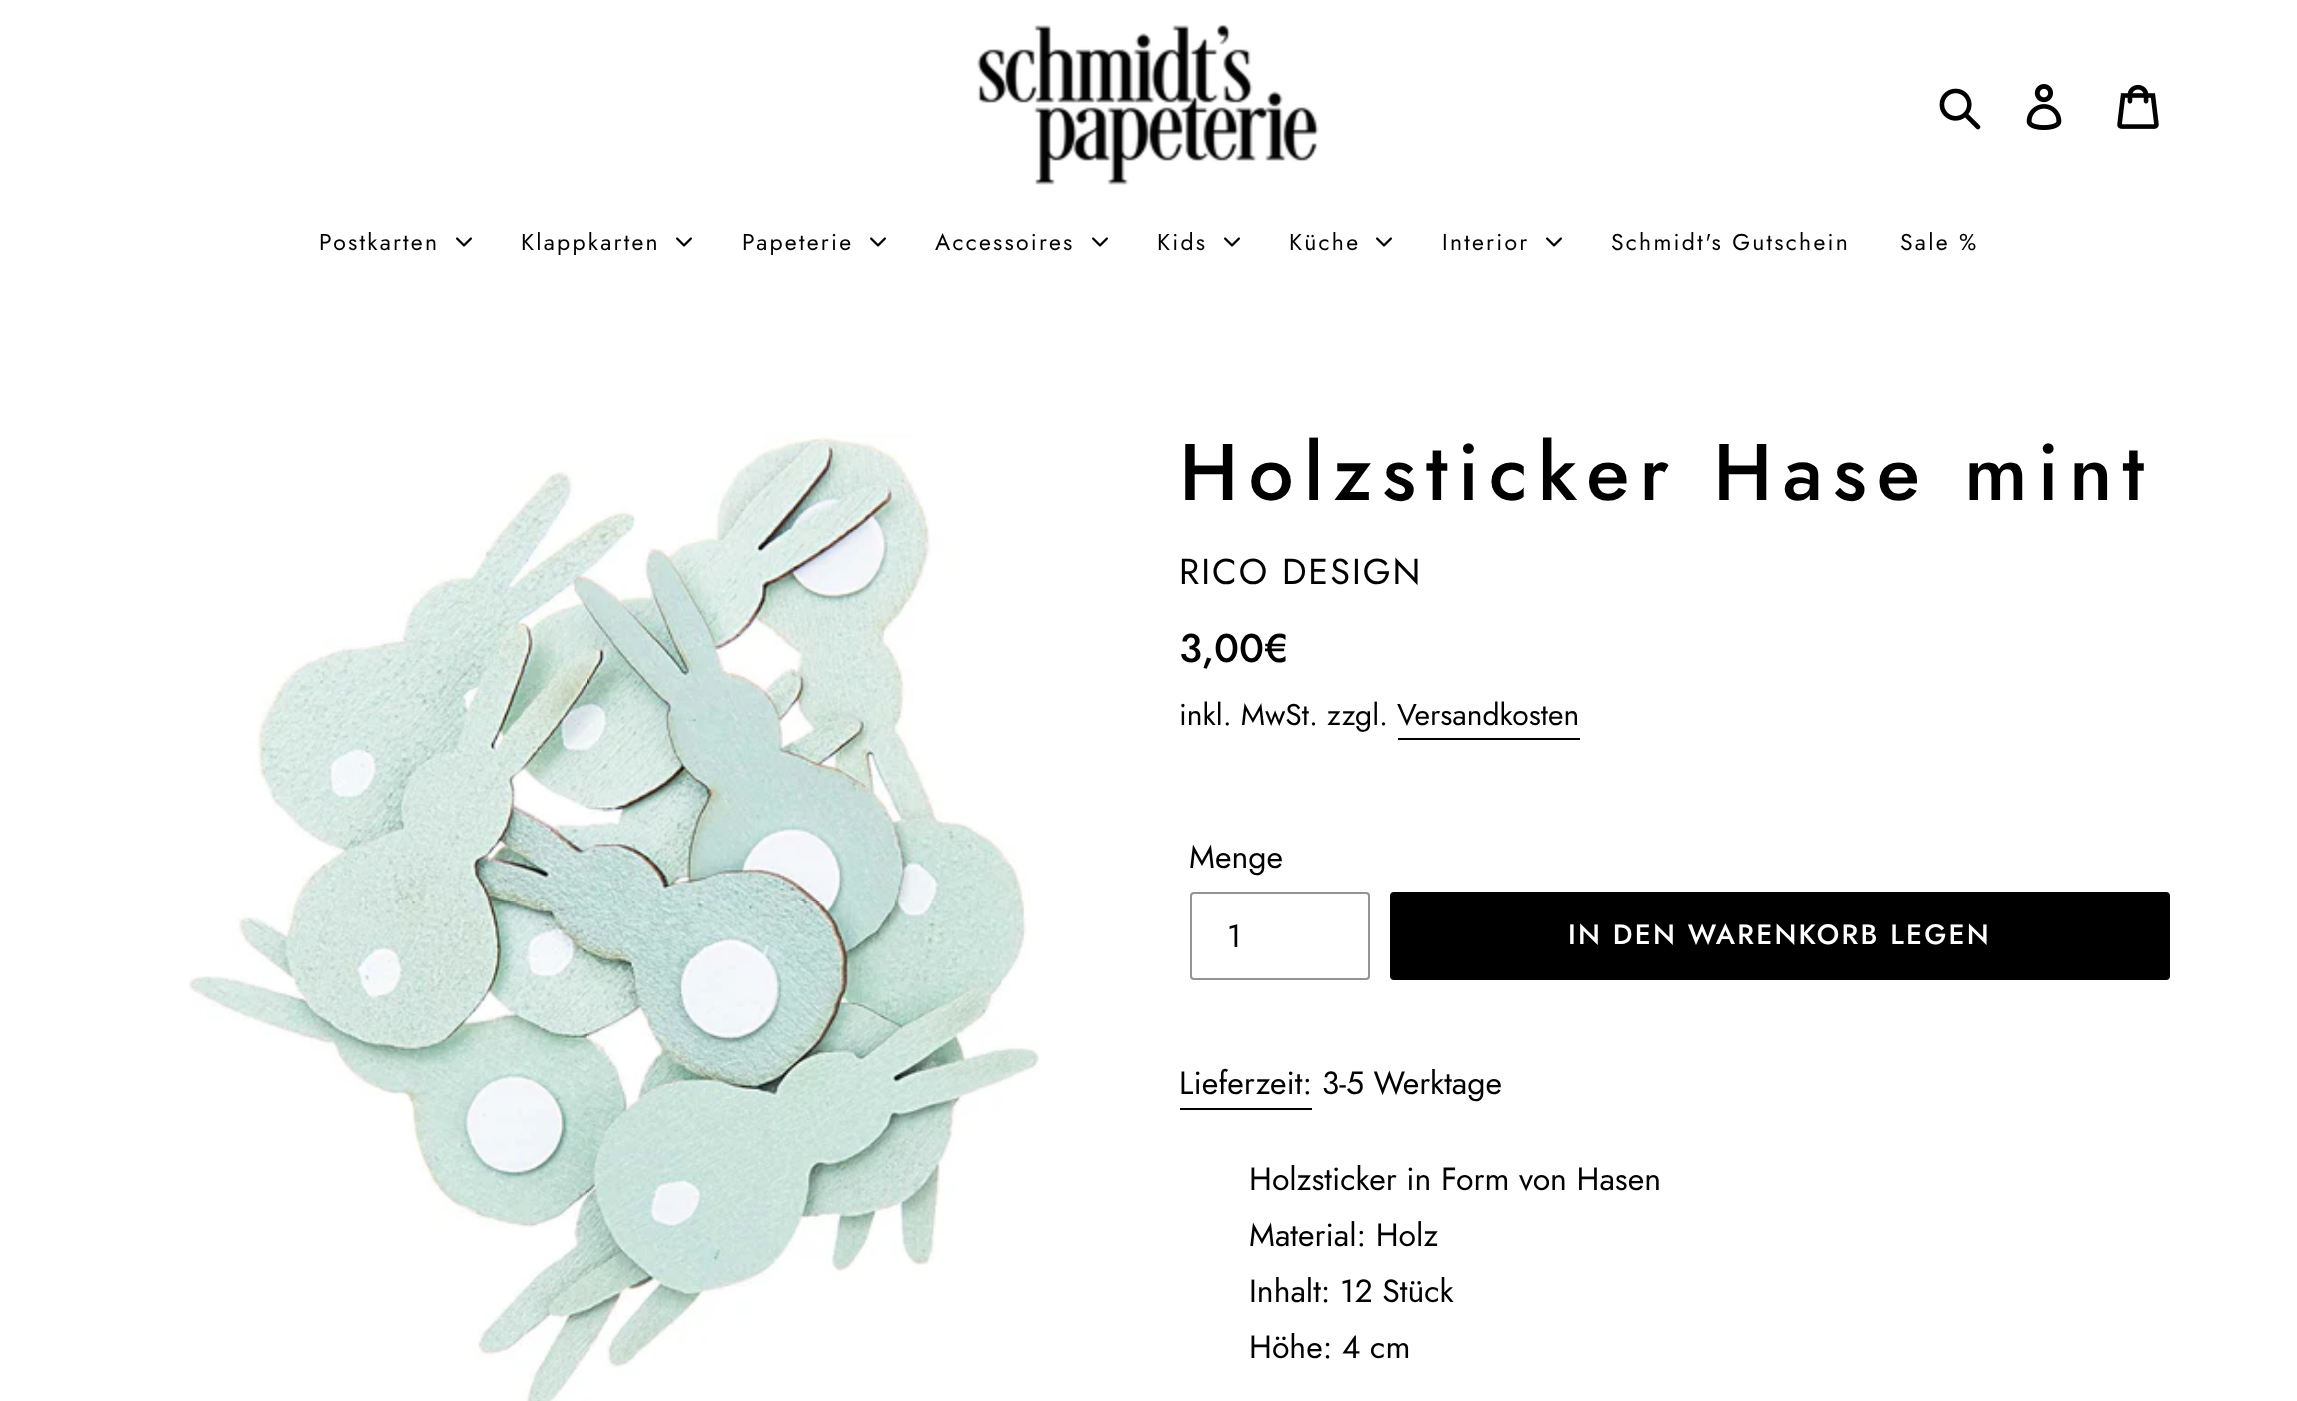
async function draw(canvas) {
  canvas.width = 2297;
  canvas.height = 1401;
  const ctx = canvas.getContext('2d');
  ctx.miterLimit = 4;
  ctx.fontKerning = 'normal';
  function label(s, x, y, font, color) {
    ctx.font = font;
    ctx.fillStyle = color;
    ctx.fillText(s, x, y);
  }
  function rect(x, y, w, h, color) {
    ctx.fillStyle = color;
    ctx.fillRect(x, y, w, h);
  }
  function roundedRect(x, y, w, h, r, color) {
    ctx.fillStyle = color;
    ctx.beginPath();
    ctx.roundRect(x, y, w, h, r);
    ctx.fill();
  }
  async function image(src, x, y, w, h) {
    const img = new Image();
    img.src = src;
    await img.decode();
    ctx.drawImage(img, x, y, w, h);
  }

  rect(0, 0, 2297, 1401, '#fff');
  await image('assets/img1.png', 977, 24, 342, 161);
  await image('assets/img2.png', 1939, 88, 42, 42);
  await image('assets/img3.png', 2026, 84, 36, 46);
  await image('assets/img4.png', 2117, 84, 42, 45);
  ctx.letterSpacing = '2.25px';
  label('Postkarten', 319, 250, '23px Jost', '#000');
  await image('assets/img5.png', 456, 237, 16, 10);
  label('Klappkarten', 521, 250, '23px Jost', '#000');
  await image('assets/img5.png', 676, 237, 16, 10);
  label('Papeterie', 742, 250, '23px Jost', '#000');
  await image('assets/img5.png', 870, 237, 16, 10);
  label('Accessoires', 935, 250, '23px Jost', '#000');
  await image('assets/img5.png', 1092, 237, 16, 10);
  label('Kids', 1157, 250, '23px Jost', '#000');
  await image('assets/img5.png', 1224, 237, 16, 10);
  label('Küche', 1289, 250, '23px Jost', '#000');
  await image('assets/img5.png', 1376, 237, 16, 10);
  label('Interior', 1442, 250, '23px Jost', '#000');
  await image('assets/img5.png', 1546, 237, 16, 10);
  label('Schmidt\'s Gutschein', 1611, 250, '23px Jost', '#000');
  label('Sale %', 1900, 250, '23px Jost', '#000');
  await image('assets/img6.png', 188, 432, 851, 969);
  ctx.letterSpacing = '10px';
  label('Holzsticker Hase mint', 1179, 500, '500 80px Jost', '#000');
  ctx.letterSpacing = '2px';
  label('RICO DESIGN', 1179, 584, '36px Jost', '#000');
  ctx.letterSpacing = '0px';
  label('3,00€', 1179, 662, '500 40px Jost', '#000');
  label('inkl. MwSt. zzgl. Versandkosten', 1179, 725, '30px Jost', '#000');
  rect(1398, 738, 182, 2, '#000');
  label('Menge', 1189, 868, '32px Jost', '#000');
  ctx.beginPath();
  ctx.roundRect(1191, 893, 178, 86, 3);
  ctx.strokeStyle = '#949494';
  ctx.lineWidth = 2;
  ctx.stroke();
  label('1', 1227, 947, '32px Jost', '#000');
  roundedRect(1390, 892, 780, 88, 4, '#000');
  ctx.letterSpacing = '2.25px';
  label('IN DEN WARENKORB LEGEN', 1568, 944, '500 28px Jost', '#fff');
  ctx.letterSpacing = '0px';
  label('Lieferzeit: 3-5 Werktage', 1179, 1094, '32px Jost', '#000');
  rect(1180, 1108, 132, 2, '#000');
  label('Holzsticker in Form von Hasen', 1249, 1190, '32px Jost', '#000');
  label('Material: Holz', 1249, 1246, '32px Jost', '#000');
  label('Inhalt: 12 Stück', 1249, 1302, '32px Jost', '#000');
  label('Höhe: 4 cm', 1249, 1358, '32px Jost', '#000');
}

draw(document.querySelector('canvas'));
